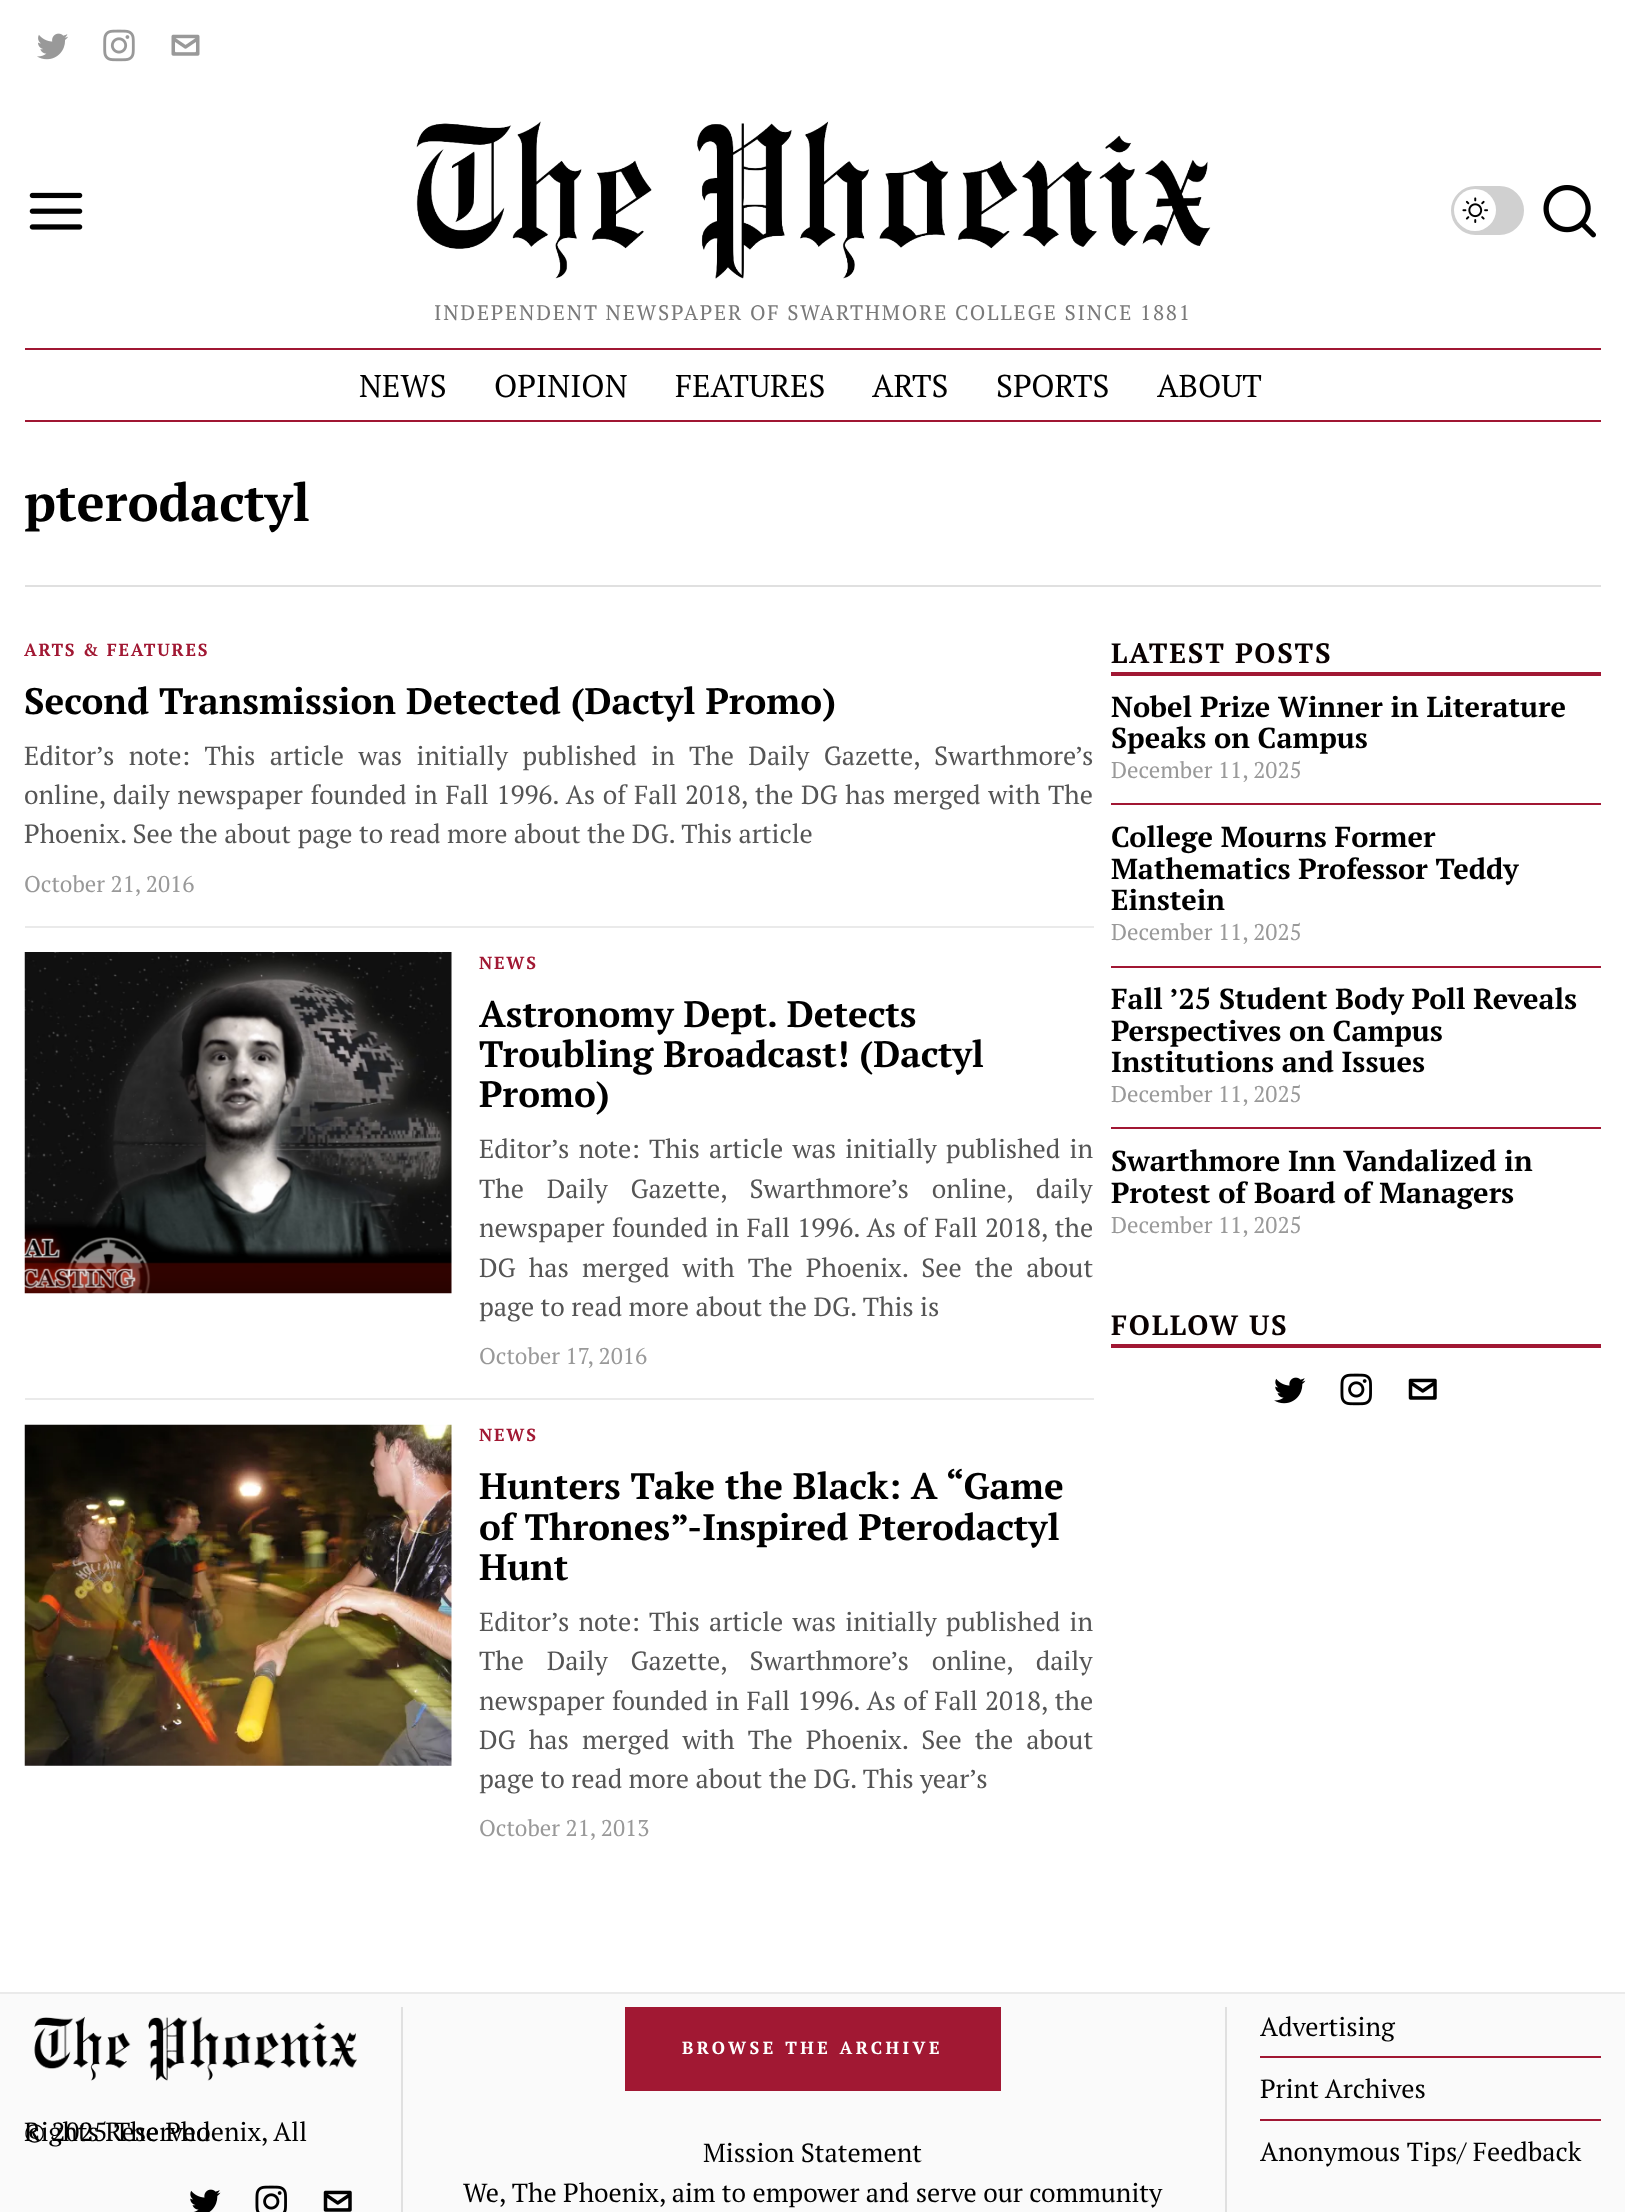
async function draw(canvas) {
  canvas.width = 1625;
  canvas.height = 2212;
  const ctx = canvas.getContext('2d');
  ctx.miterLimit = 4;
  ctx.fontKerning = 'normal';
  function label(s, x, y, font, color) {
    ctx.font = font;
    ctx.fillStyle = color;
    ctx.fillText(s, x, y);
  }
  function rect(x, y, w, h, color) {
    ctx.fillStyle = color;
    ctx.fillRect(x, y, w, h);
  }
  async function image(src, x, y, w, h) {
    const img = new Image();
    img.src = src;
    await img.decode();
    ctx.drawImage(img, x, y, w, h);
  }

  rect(0, 0, 1625, 2212, '#fff');
  await image('assets/img1.png', 37, 33, 31, 27);
  await image('assets/img2.png', 103, 29, 32, 33);
  await image('assets/img3.png', 171, 34, 29, 22);
  await image('assets/img4.png', 29, 192, 54, 38);
  ctx.fillStyle = '#d0d0d0';
  ctx.beginPath();
  ctx.roundRect(1453, 188, 69, 45, 22.5);
  ctx.fill();
  ctx.strokeStyle = '#d0d0d0';
  ctx.lineWidth = 4;
  ctx.stroke();
  ctx.fillStyle = '#fff';
  ctx.beginPath();
  ctx.arc(1475, 210, 21, 0, 2 * Math.PI);
  ctx.fill();
  await image('assets/img5.png', 1462, 197, 26, 26);
  await image('assets/img6.png', 1543, 185, 53, 53);
  await image('assets/img7.png', 416, 121, 795, 158);
  ctx.letterSpacing = '1.75px';
  label('INDEPENDENT NEWSPAPER OF SWARTHMORE COLLEGE SINCE 1881', 434, 320, '21px PT Serif', '#797979');
  rect(25, 348, 1576, 2, '#a01733');
  rect(25, 420, 1576, 2, '#a01733');
  ctx.letterSpacing = '0px';
  label('NEWS', 359, 397, '31.5px PT Serif', '#000');
  label('OPINION', 494, 397, '31.5px PT Serif', '#000');
  label('FEATURES', 675, 397, '31.5px PT Serif', '#000');
  label('ARTS', 872, 397, '31.5px PT Serif', '#000');
  label('SPORTS', 996, 397, '31.5px PT Serif', '#000');
  label('ABOUT', 1157, 397, '31.5px PT Serif', '#000');
  rect(25, 585, 1576, 2, '#e0e0e0');
  label('pterodactyl', 24, 521, 'bold 52.5px PT Serif', '#000');
  ctx.letterSpacing = '1.75px';
  label('ARTS & FEATURES', 24, 656, 'bold 17.5px PT Serif', '#a11833');
  ctx.letterSpacing = '0px';
  label('Second Transmission Detected (Dactyl Promo)', 24, 714, 'bold 36.75px PT Serif', '#000');
  ctx.wordSpacing = '8px';
  label('Editor’s note: This article was initially published in The Daily Gazette, Swarthmore’s', 24, 765, '26.25px PT Serif', '#555');
  ctx.wordSpacing = '1.3px';
  label('online, daily newspaper founded in Fall 1996. As of Fall 2018, the DG has merged with The', 24, 804, '26.25px PT Serif', '#555');
  ctx.wordSpacing = '0px';
  label('Phoenix. See the about page to read more about the DG. This article', 24, 843, '26.25px PT Serif', '#555');
  label('October 21, 2016', 24, 892, '22.75px PT Serif', '#999');
  rect(25, 926, 1069, 2, '#eaeaea');
  await image('assets/img8.png', 24, 952, 428, 342);
  ctx.letterSpacing = '1.75px';
  label('NEWS', 479, 969, 'bold 17.5px PT Serif', '#a11833');
  ctx.letterSpacing = '0px';
  label('Astronomy Dept. Detects', 479, 1027, 'bold 36.75px PT Serif', '#000');
  label('Troubling Broadcast! (Dactyl', 479, 1067, 'bold 36.75px PT Serif', '#000');
  label('Promo)', 479, 1107, 'bold 36.75px PT Serif', '#000');
  ctx.wordSpacing = '2.75px';
  label('Editor’s note: This article was initially published in', 479, 1158, '26.25px PT Serif', '#555');
  ctx.wordSpacing = '16.5px';
  label('The Daily Gazette, Swarthmore’s online, daily', 479, 1198, '26.25px PT Serif', '#555');
  ctx.wordSpacing = '1.1px';
  label('newspaper founded in Fall 1996. As of Fall 2018, the', 479, 1237, '26.25px PT Serif', '#555');
  ctx.wordSpacing = '6.75px';
  label('DG has merged with The Phoenix. See the about', 479, 1277, '26.25px PT Serif', '#555');
  ctx.wordSpacing = '0px';
  label('page to read more about the DG. This is', 479, 1316, '26.25px PT Serif', '#555');
  label('October 17, 2016', 479, 1364, '22.75px PT Serif', '#999');
  rect(25, 1398, 1069, 2, '#eaeaea');
  await image('assets/img9.png', 24, 1424, 428, 342);
  ctx.letterSpacing = '1.75px';
  label('NEWS', 479, 1441, 'bold 17.5px PT Serif', '#a11833');
  ctx.letterSpacing = '0px';
  label('Hunters Take the Black: A “Game', 479, 1499, 'bold 36.75px PT Serif', '#000');
  label('of Thrones”-Inspired Pterodactyl', 479, 1540, 'bold 36.75px PT Serif', '#000');
  label('Hunt', 479, 1580, 'bold 36.75px PT Serif', '#000');
  ctx.wordSpacing = '2.75px';
  label('Editor’s note: This article was initially published in', 479, 1631, '26.25px PT Serif', '#555');
  ctx.wordSpacing = '16.5px';
  label('The Daily Gazette, Swarthmore’s online, daily', 479, 1670, '26.25px PT Serif', '#555');
  ctx.wordSpacing = '1.1px';
  label('newspaper founded in Fall 1996. As of Fall 2018, the', 479, 1710, '26.25px PT Serif', '#555');
  ctx.wordSpacing = '6.75px';
  label('DG has merged with The Phoenix. See the about', 479, 1749, '26.25px PT Serif', '#555');
  ctx.wordSpacing = '0px';
  label('page to read more about the DG. This year’s', 479, 1788, '26.25px PT Serif', '#555');
  label('October 21, 2013', 479, 1836, '22.75px PT Serif', '#999');
  rect(1111, 672, 490, 4, '#a11733');
  ctx.letterSpacing = '1.75px';
  label('LATEST POSTS', 1111, 663, 'bold 28px PT Serif', '#0a0101');
  ctx.letterSpacing = '0px';
  label('Nobel Prize Winner in Literature', 1111, 717, 'bold 28.9px PT Serif', '#000');
  label('Speaks on Campus', 1111, 748, 'bold 28.9px PT Serif', '#000');
  label('December 11, 2025', 1111, 778, '22.75px PT Serif', '#999');
  rect(1111, 803, 490, 2, '#a11733');
  label('College Mourns Former', 1111, 847, 'bold 28.9px PT Serif', '#000');
  label('Mathematics Professor Teddy', 1111, 879, 'bold 28.9px PT Serif', '#000');
  label('Einstein', 1111, 910, 'bold 28.9px PT Serif', '#000');
  label('December 11, 2025', 1111, 940, '22.75px PT Serif', '#999');
  rect(1111, 966, 490, 2, '#a11733');
  label('Fall ’25 Student Body Poll Reveals', 1111, 1009, 'bold 28.9px PT Serif', '#000');
  label('Perspectives on Campus', 1111, 1041, 'bold 28.9px PT Serif', '#000');
  label('Institutions and Issues', 1111, 1072, 'bold 28.9px PT Serif', '#000');
  label('December 11, 2025', 1111, 1102, '22.75px PT Serif', '#999');
  rect(1111, 1127, 490, 2, '#a11733');
  label('Swarthmore Inn Vandalized in', 1111, 1171, 'bold 28.9px PT Serif', '#000');
  label('Protest of Board of Managers', 1111, 1203, 'bold 28.9px PT Serif', '#000');
  label('December 11, 2025', 1111, 1233, '22.75px PT Serif', '#999');
  rect(1111, 1344, 490, 4, '#a11733');
  ctx.letterSpacing = '1.75px';
  label('FOLLOW US', 1111, 1335, 'bold 28px PT Serif', '#0a0101');
  await image('assets/img10.png', 1274, 1377, 32, 27);
  await image('assets/img11.png', 1340, 1373, 32, 33);
  await image('assets/img12.png', 1408, 1378, 29, 22);
  rect(0, 1994, 1625, 218, '#fafafa');
  rect(0, 1992, 1625, 2, '#eaeaea');
  await image('assets/img13.png', 34, 2016, 323, 65);
  ctx.letterSpacing = '0px';
  label('© 2025 The Phoenix, All', 24, 2141, '26.25px PT Serif', '#000');
  label('Rights Reserved', 24, 2141, '26.25px PT Serif', '#000');
  await image('assets/img14.png', 190, 2189, 31, 23);
  await image('assets/img15.png', 255, 2185, 32, 27);
  await image('assets/img16.png', 323, 2190, 29, 22);
  rect(401, 2007, 2, 205, '#e0e0e0');
  rect(625, 2007, 376, 84, '#a11833');
  ctx.letterSpacing = '3.5px';
  label('BROWSE THE ARCHIVE', 682, 2054, 'bold 17.5px PT Serif', '#fff');
  ctx.letterSpacing = '0px';
  label('Mission Statement', 703, 2162, '26.25px PT Serif', '#000');
  label('We, The Phoenix, aim to empower and serve our community', 463, 2202, '26.25px PT Serif', '#000');
  rect(1225, 2007, 2, 205, '#e0e0e0');
  label('Advertising', 1260, 2036, '26.25px PT Serif', '#000');
  rect(1260, 2056, 341, 2, '#a11733');
  label('Print Archives', 1260, 2098, '26.25px PT Serif', '#000');
  rect(1260, 2119, 341, 2, '#a11733');
  label('Anonymous Tips/ Feedback', 1260, 2161, '26.25px PT Serif', '#000');
}

draw(document.querySelector('canvas'));
